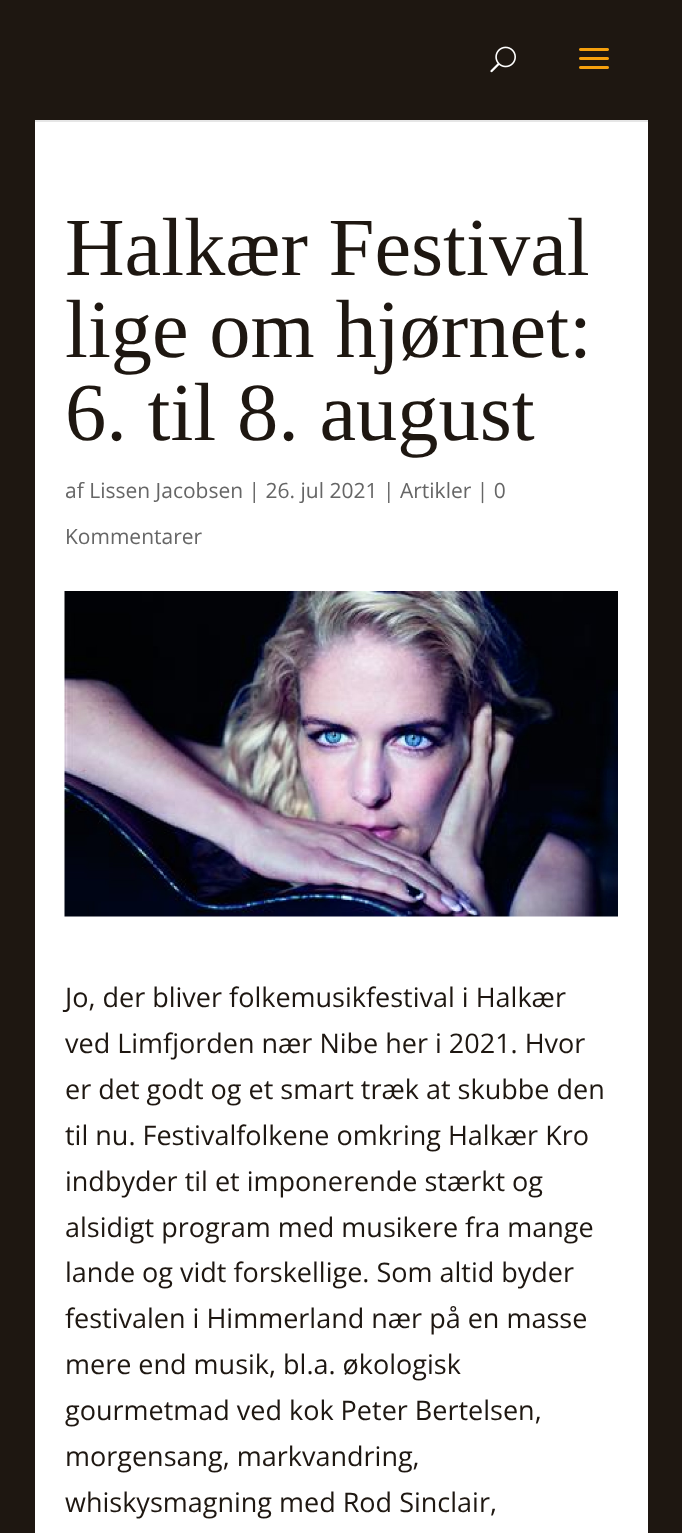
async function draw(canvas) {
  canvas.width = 682;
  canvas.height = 1533;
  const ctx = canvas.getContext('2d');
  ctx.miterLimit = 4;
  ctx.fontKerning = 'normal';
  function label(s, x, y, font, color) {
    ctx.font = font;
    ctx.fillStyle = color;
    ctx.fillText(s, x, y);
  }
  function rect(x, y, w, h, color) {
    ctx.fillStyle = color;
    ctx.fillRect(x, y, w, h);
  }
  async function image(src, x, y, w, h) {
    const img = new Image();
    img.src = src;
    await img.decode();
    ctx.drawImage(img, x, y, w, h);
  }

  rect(0, 0, 682, 1533, '#1e1711');
  rect(35, 120, 613, 2, '#e6e6e6');
  await image('assets/img1.png', 490, 46, 26, 27);
  await image('assets/img2.png', 579, 48, 30, 21);
  rect(35, 122, 613, 1411, '#fff');
  label('Halkær Festival', 65, 275, '82.5px Liberation Serif', '#1e1711');
  label('lige om hjørnet:', 65, 357, '82.5px Liberation Serif', '#1e1711');
  label('6. til 8. august', 65, 440, '82.5px Liberation Serif', '#1e1711');
  label('af Lissen Jacobsen | 26. jul 2021 | Artikler | 0', 65, 498, '21px Open Sans', '#666');
  label('Kommentarer', 65, 544, '21px Open Sans', '#666');
  await image('assets/img3.png', 64, 591, 554, 326);
  label('Jo, der bliver folkemusikfestival i Halkær', 65, 1007, '27px Open Sans', '#1e1711');
  label('ved Limfjorden nær Nibe her i 2021. Hvor', 65, 1053, '27px Open Sans', '#1e1711');
  label('er det godt og et smart træk at skubbe den', 65, 1099, '27px Open Sans', '#1e1711');
  label('til nu. Festivalfolkene omkring Halkær Kro', 65, 1145, '27px Open Sans', '#1e1711');
  label('indbyder til et imponerende stærkt og', 65, 1191, '27px Open Sans', '#1e1711');
  label('alsidigt program med musikere fra mange', 65, 1237, '27px Open Sans', '#1e1711');
  label('lande og vidt forskellige. Som altid byder', 65, 1282, '27px Open Sans', '#1e1711');
  label('festivalen i Himmerland nær på en masse', 65, 1328, '27px Open Sans', '#1e1711');
  label('mere end musik, bl.a. økologisk', 65, 1374, '27px Open Sans', '#1e1711');
  label('gourmetmad ved kok Peter Bertelsen,', 65, 1420, '27px Open Sans', '#1e1711');
  label('morgensang, markvandring,', 65, 1466, '27px Open Sans', '#1e1711');
  label('whiskysmagning med Rod Sinclair,', 65, 1512, '27px Open Sans', '#1e1711');
}

draw(document.querySelector('canvas'));
